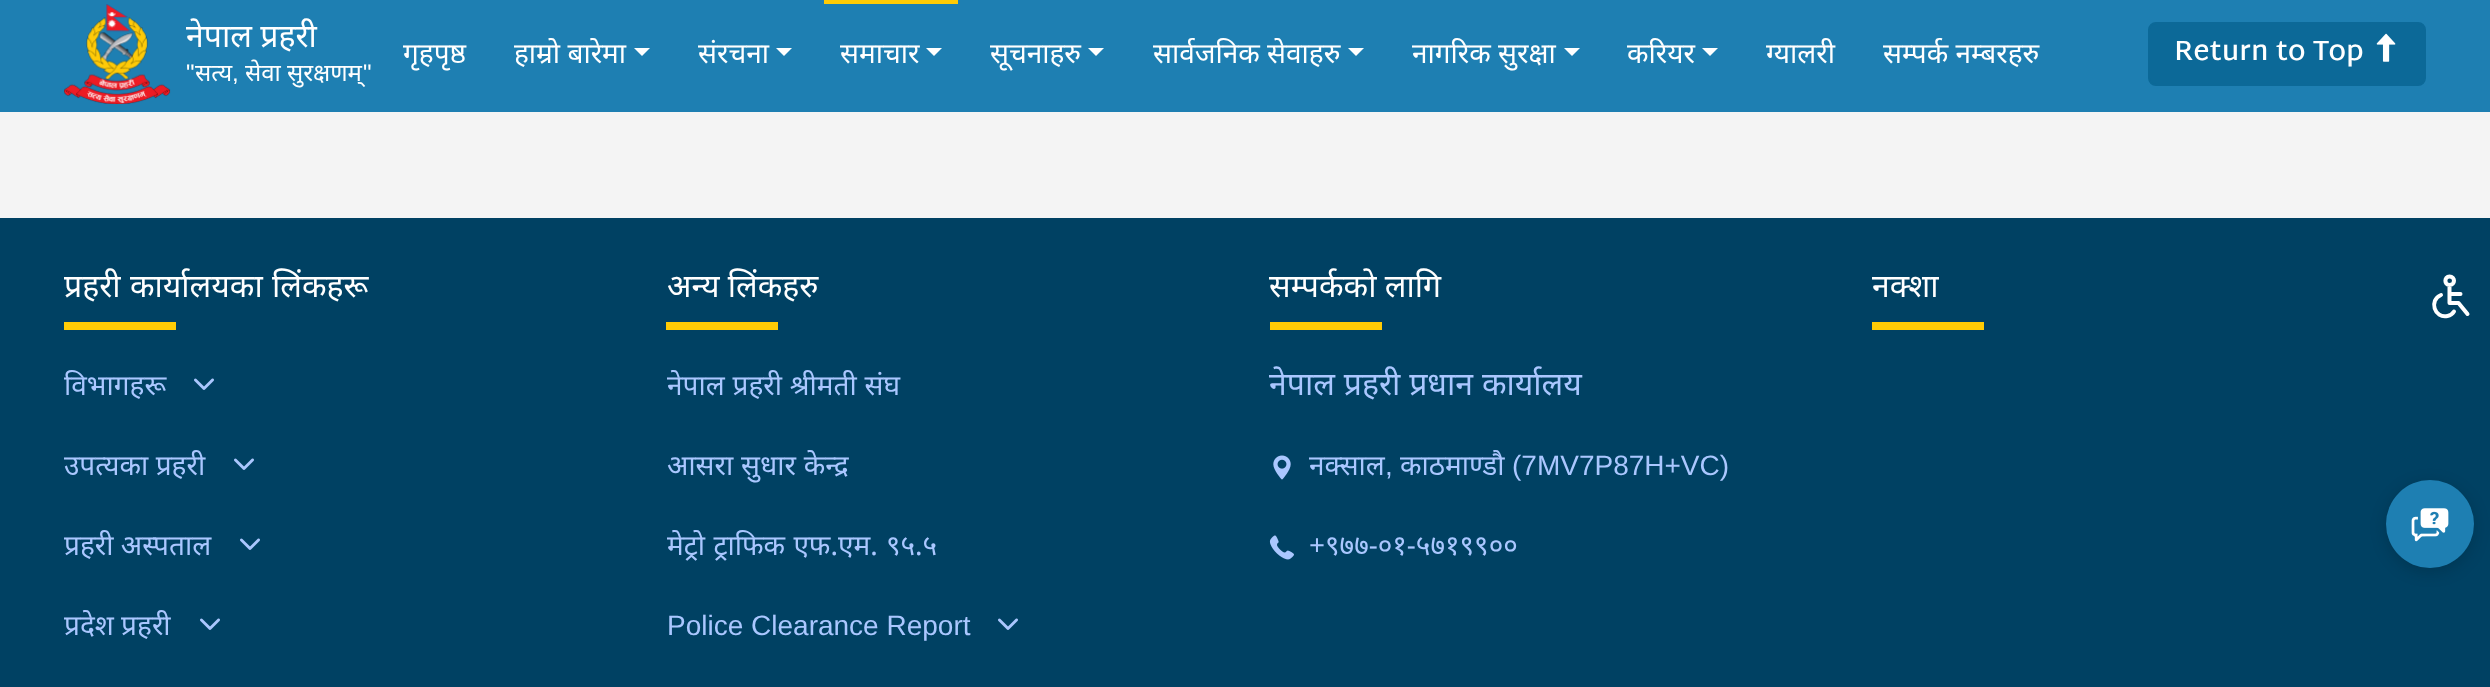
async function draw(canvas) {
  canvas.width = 2490;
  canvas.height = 687;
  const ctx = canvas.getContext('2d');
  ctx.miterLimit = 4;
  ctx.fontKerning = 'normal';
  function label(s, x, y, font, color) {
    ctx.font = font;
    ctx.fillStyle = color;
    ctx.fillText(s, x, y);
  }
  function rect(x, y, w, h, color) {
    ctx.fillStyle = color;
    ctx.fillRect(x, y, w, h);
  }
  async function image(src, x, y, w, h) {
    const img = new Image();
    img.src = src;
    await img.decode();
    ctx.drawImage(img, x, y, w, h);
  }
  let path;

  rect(0, 0, 2490, 687, '#f4f4f4');
  rect(0, 0, 2490, 112, '#1e7fb2');
  await image('assets/img1.png', 64, 4, 107, 100);
  label('नेपाल प्रहरी', 186, 47, '32px Noto Sans', '#fff');
  label('"', 186, 81, '24px Liberation Sans', '#fff');
  label('सत्य', 195, 81, '24px Noto Sans', '#fff');
  label(',', 232, 81, '24px Liberation Sans', '#fff');
  label('सेवा सुरक्षणम्', 245, 81, '24px Noto Sans', '#fff');
  label('"', 363, 81, '24px Liberation Sans', '#fff');
  label('गृहपृष्ठ', 403, 63, '28px Noto Sans', '#fff');
  label('हाम्रो बारेमा', 514, 63, '28px Noto Sans', '#fff');
  path = new Path2D('M634 48H650L642 56Z');
  ctx.fill(path);
  label('संरचना', 698, 63, '28px Noto Sans', '#fff');
  path = new Path2D('M776 48H792L784 56Z');
  ctx.fill(path);
  rect(824, 0, 134, 4, '#ffcb05');
  label('समाचार', 840, 63, '28px Noto Sans', '#fff');
  path = new Path2D('M926 48H942L934 56Z');
  ctx.fill(path);
  label('सूचनाहरु', 990, 63, '28px Noto Sans', '#fff');
  path = new Path2D('M1088 48H1104L1096 56Z');
  ctx.fill(path);
  label('सार्वजनिक सेवाहरु', 1153, 63, '28px Noto Sans', '#fff');
  path = new Path2D('M1348 48H1364L1356 56Z');
  ctx.fill(path);
  label('नागरिक सुरक्षा', 1412, 63, '28px Noto Sans', '#fff');
  path = new Path2D('M1564 48H1580L1572 56Z');
  ctx.fill(path);
  label('करियर', 1627, 63, '28px Noto Sans', '#fff');
  path = new Path2D('M1702 48H1718L1710 56Z');
  ctx.fill(path);
  label('ग्यालरी', 1766, 63, '28px Noto Sans', '#fff');
  label('सम्पर्क नम्बरहरु', 1883, 63, '28px Noto Sans', '#fff');
  ctx.fillStyle = '#0c6998';
  ctx.beginPath();
  ctx.roundRect(2149, 23, 276, 62, 7);
  ctx.fill();
  ctx.strokeStyle = '#0c6998';
  ctx.lineWidth = 2;
  ctx.stroke();
  label('Return to Top', 2174, 60, '600 28px Martel Sans', '#fff');
  await image('assets/img2.png', 2376, 33, 20, 29);
  rect(0, 218, 2490, 469, '#004163');
  ctx.wordSpacing = '1px';
  label('प्रहरी कार्यालयका लिंकहरू', 64, 297, '32px Noto Sans', '#fff');
  rect(64, 322, 112, 8, '#ffcb05');
  ctx.wordSpacing = '0px';
  label('विभागहरू', 64, 395, '28px Noto Sans', '#aac7ff');
  await image('assets/img3.png', 194, 378, 20, 12);
  label('उपत्यका प्रहरी', 64, 475, '28px Noto Sans', '#aac7ff');
  await image('assets/img3.png', 234, 458, 20, 12);
  label('प्रहरी अस्पताल', 64, 555, '28px Noto Sans', '#aac7ff');
  await image('assets/img3.png', 240, 538, 20, 12);
  label('प्रदेश प्रहरी', 64, 635, '28px Noto Sans', '#aac7ff');
  await image('assets/img3.png', 200, 618, 20, 12);
  label('अन्य लिंकहरु', 667, 297, '32px Noto Sans', '#fff');
  rect(666, 322, 112, 8, '#ffcb05');
  ctx.wordSpacing = '0.5px';
  label('नेपाल प्रहरी श्रीमती संघ', 667, 395, '28px Noto Sans', '#aac7ff');
  label('आसरा सुधार केन्द्र', 667, 475, '28px Noto Sans', '#aac7ff');
  ctx.wordSpacing = '1px';
  label('मेट्रो ट्राफिक एफ.एम. ९५.५', 667, 555, '28px Noto Sans', '#aac7ff');
  ctx.wordSpacing = '0px';
  label('Police Clearance Report', 667, 635, '28px Liberation Sans', '#aac7ff');
  await image('assets/img3.png', 998, 618, 20, 12);
  label('सम्पर्कको लागि', 1269, 297, '32px Noto Sans', '#fff');
  rect(1270, 322, 112, 8, '#ffcb05');
  ctx.wordSpacing = '0.5px';
  label('नेपाल प्रहरी प्रधान कार्यालय', 1269, 395, '32px Noto Sans', '#aac7ff');
  await image('assets/img4.png', 1273, 455, 18, 25);
  ctx.wordSpacing = '0px';
  label('नक्साल', 1309, 475, '28px Noto Sans', '#aac7ff');
  label(',', 1385, 475, '28px Liberation Sans', '#aac7ff');
  label('काठमाण्डौ', 1400, 475, '28px Noto Sans', '#aac7ff');
  label('(7MV7P87H+VC)', 1512, 475, '28px Liberation Sans', '#aac7ff');
  await image('assets/img5.png', 1269, 535, 25, 25);
  label('+९७७-०१-५७१९९००', 1309, 555, '28px Noto Sans', '#aac7ff');
  label('नक्शा', 1872, 297, '32px Noto Sans', '#fff');
  rect(1872, 322, 112, 8, '#ffcb05');
  path = new Path2D('M2449.5 285C2455.5 285 2455.5 276.5 2449.5 276.5C2444 276.5 2444 285 2449.5 285ZM2449.5 285V303H2458.5L2467.5 314M2449.5 294H2460.5M2441 295C2428.5 300 2434.5 319 2447.5 316C2450 315.5 2452.5 314 2454 311.5');
  ctx.strokeStyle = '#fff';
  ctx.lineWidth = 4;
  ctx.lineCap = 'round';
  ctx.lineJoin = 'round';
  ctx.stroke(path);
  ctx.fillStyle = '#00000029';
  ctx.filter = 'blur(8px)';
  ctx.beginPath();
  ctx.roundRect(2386, 484, 88, 88, 44);
  ctx.fill();
  ctx.filter = 'none';
  ctx.fillStyle = '#1e7fb2';
  ctx.beginPath();
  ctx.arc(2430, 524, 44, 0, 2 * Math.PI);
  ctx.fill();
  await image('assets/img6.png', 2411, 508, 38, 34);
}

draw(document.querySelector('canvas'));
